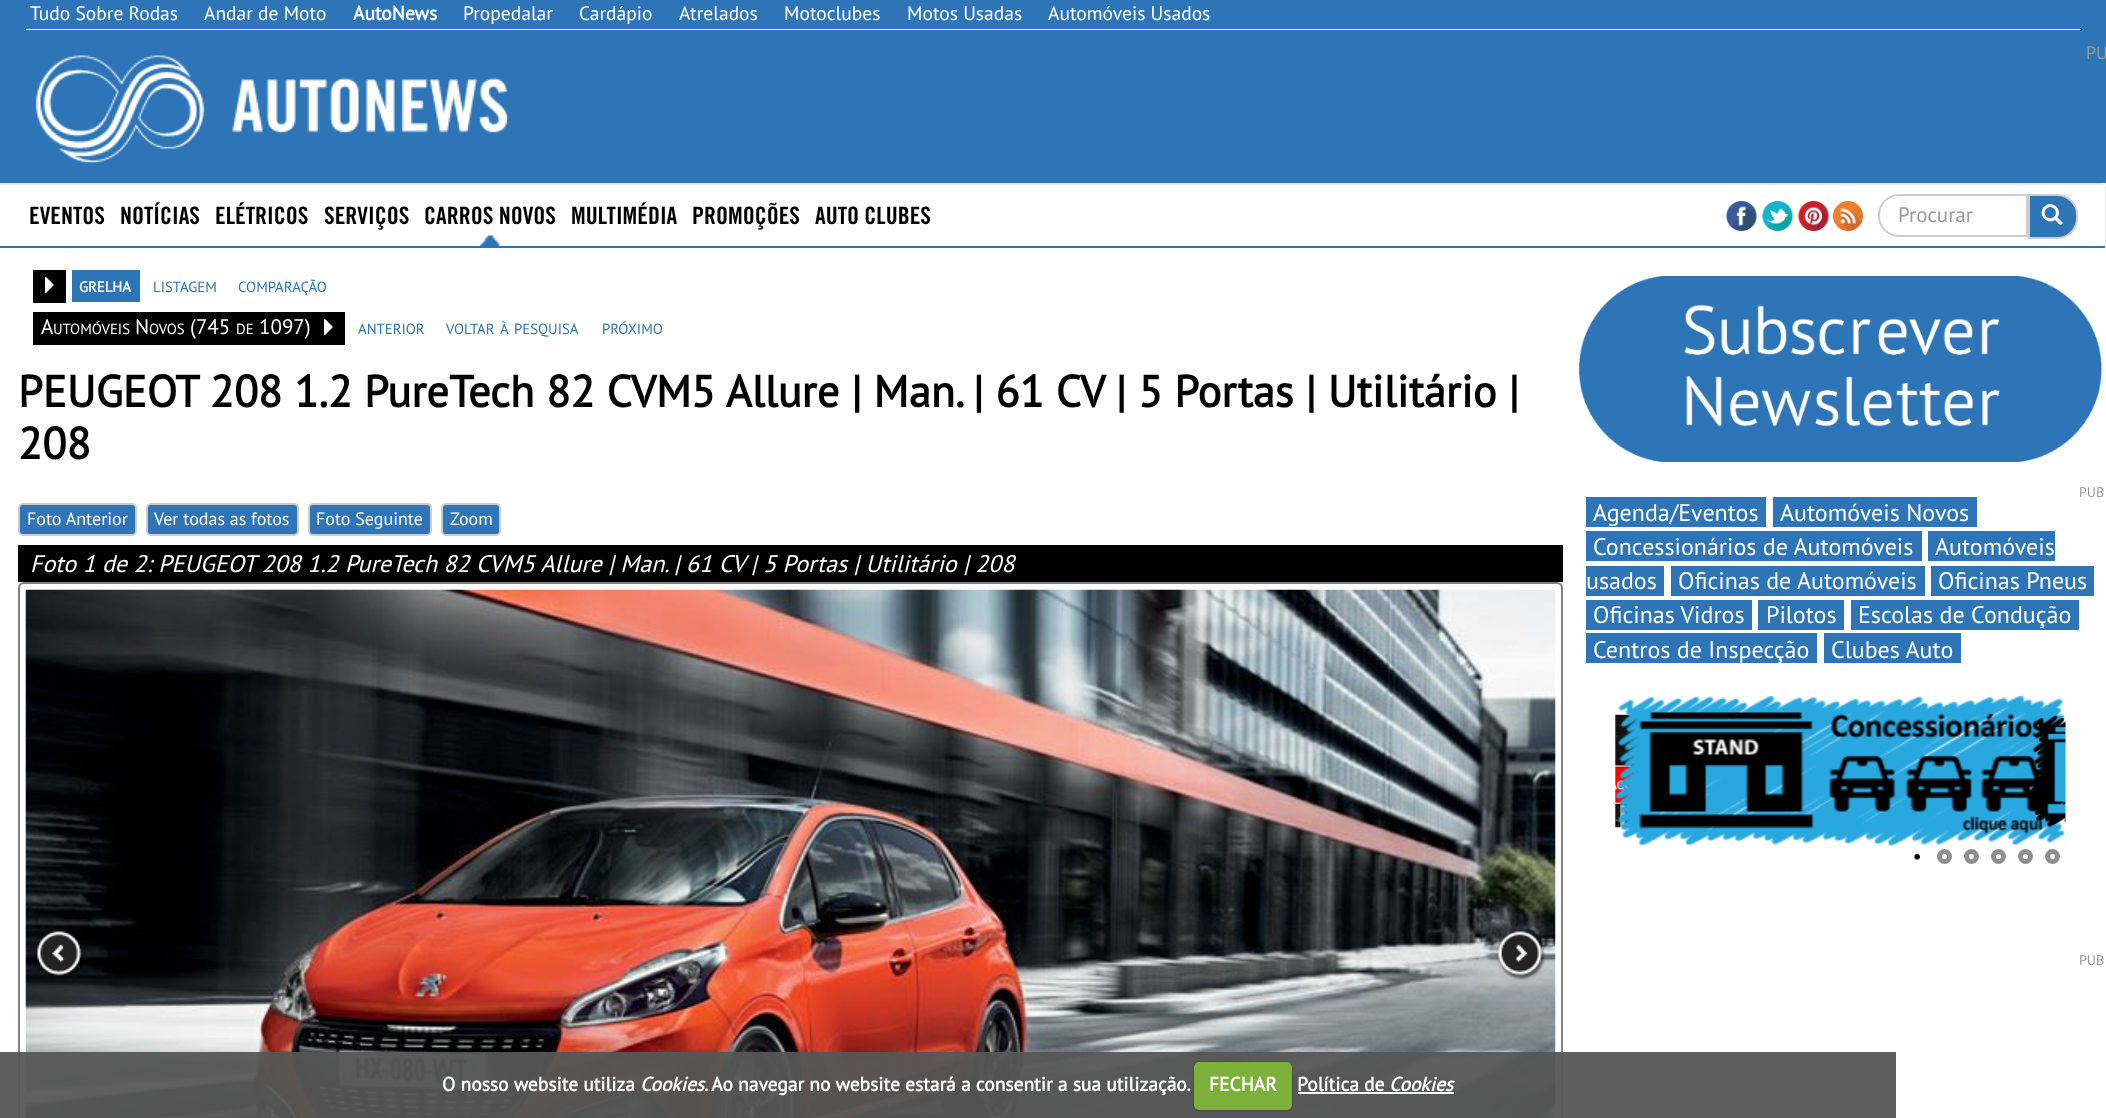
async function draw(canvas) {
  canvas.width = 2106;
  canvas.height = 1118;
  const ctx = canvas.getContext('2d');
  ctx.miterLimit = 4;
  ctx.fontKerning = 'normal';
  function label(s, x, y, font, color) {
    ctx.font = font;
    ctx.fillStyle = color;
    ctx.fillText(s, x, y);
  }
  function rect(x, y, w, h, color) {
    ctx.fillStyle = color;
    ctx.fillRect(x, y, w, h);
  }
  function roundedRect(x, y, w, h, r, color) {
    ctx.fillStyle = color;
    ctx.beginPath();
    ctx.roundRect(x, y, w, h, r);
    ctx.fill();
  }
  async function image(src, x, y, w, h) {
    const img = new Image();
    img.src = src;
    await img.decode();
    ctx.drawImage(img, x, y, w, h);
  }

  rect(0, 0, 2106, 1118, '#fff');
  rect(0, 0, 2106, 183, '#2e75b7');
  rect(26, 29, 2055, 1, '#fff');
  label('Tudo Sobre Rodas', 30, 20, '19.5px PT Sans', '#fff');
  label('Andar de Moto', 204, 20, '19.5px PT Sans', '#fff');
  label('AutoNews', 353, 20, 'bold 19.5px PT Sans', '#fff');
  label('Propedalar', 463, 20, '19.5px PT Sans', '#fff');
  label('Cardápio', 579, 20, '19.5px PT Sans', '#fff');
  label('Atrelados', 679, 20, '19.5px PT Sans', '#fff');
  label('Motoclubes', 784, 20, '19.5px PT Sans', '#fff');
  label('Motos Usadas', 907, 20, '19.5px PT Sans', '#fff');
  label('Automóveis Usados', 1048, 20, '19.5px PT Sans', '#fff');
  label('PU', 2086, 59, '18px PT Sans', '#999');
  await image('assets/img1.png', 35, 55, 473, 108);
  rect(2100, 183, 6, 62, '#f8f8f8');
  rect(2105, 245, 1, 2, '#e7e7e7');
  ctx.beginPath();
  ctx.roundRect(-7, 184, 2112, 61, 5);
  ctx.strokeStyle = '#e7e7e7';
  ctx.lineWidth = 2;
  ctx.stroke();
  rect(0, 185, 2105, 61, '#fff');
  rect(0, 246, 2105, 2, '#2e75b7');
  label('EVENTOS', 29, 224, 'bold 24px "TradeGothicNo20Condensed"', '#000');
  label('NOTÍCIAS', 120, 224, 'bold 24px "TradeGothicNo20Condensed"', '#000');
  label('ELÉTRICOS', 215, 224, 'bold 24px "TradeGothicNo20Condensed"', '#000');
  label('SERVIÇOS', 324, 224, 'bold 24px "TradeGothicNo20Condensed"', '#000');
  await image('assets/img2.png', 480, 235, 20, 11);
  label('CARROS NOVOS', 424, 224, 'bold 24px "TradeGothicNo20Condensed"', '#000');
  label('MULTIMÉDIA', 571, 224, 'bold 24px "TradeGothicNo20Condensed"', '#000');
  label('PROMOÇÕES', 692, 224, 'bold 24px "TradeGothicNo20Condensed"', '#000');
  label('AUTO CLUBES', 815, 224, 'bold 24px "TradeGothicNo20Condensed"', '#000');
  await image('assets/img3.png', 1726, 201, 31, 30);
  await image('assets/img4.png', 1762, 201, 31, 30);
  await image('assets/img5.png', 1798, 201, 31, 30);
  await image('assets/img6.png', 1833, 201, 30, 30);
  ctx.beginPath();
  ctx.roundRect(1879, 195, 148, 41, [20, 0, 0, 20]);
  ctx.strokeStyle = '#ccc';
  ctx.stroke();
  label('Procurar', 1898, 222, '21px PT Sans', '#999');
  ctx.fillStyle = '#2e75b7';
  ctx.beginPath();
  ctx.roundRect(2029, 195, 48, 43, [0, 20, 20, 0]);
  ctx.fill();
  ctx.stroke();
  await image('assets/img7.png', 2041, 204, 22, 22);
  rect(33, 270, 33, 33, '#000');
  await image('assets/img8.png', 45, 276, 9, 18);
  rect(72, 270, 68, 32, '#2e75b7');
  label('GRELHA', 79, 292, 'bold 14.75px PT Sans', '#fff');
  label('LISTAGEM', 153, 292, '14.75px PT Sans', '#2e75b7');
  label('COMPARAÇÃO', 238, 292, '14.75px PT Sans', '#2e75b7');
  rect(33, 312, 312, 33, '#000');
  label('A', 41, 334, '21px PT Sans', '#fff');
  label('UTOMÓVEIS', 53, 334, '14.75px PT Sans', '#fff');
  label('N', 135, 334, '21px PT Sans', '#fff');
  label('OVOS', 149, 334, '14.75px PT Sans', '#fff');
  label('(745', 190, 334, '21px PT Sans', '#fff');
  label('DE', 236, 334, '14.75px PT Sans', '#fff');
  label('1097)', 259, 334, '21px PT Sans', '#fff');
  await image('assets/img8.png', 324, 318, 9, 18);
  label('ANTERIOR', 358, 334, '14.75px PT Sans', '#2e75b7');
  label('VOLTAR', 446, 334, '14.75px PT Sans', '#2e75b7');
  label('À', 500, 334, '14.75px PT Sans', '#2e75b7');
  label('PESQUISA', 514, 334, '14.75px PT Sans', '#2e75b7');
  label('PRÓXIMO', 602, 334, '14.75px PT Sans', '#2e75b7');
  label('PEUGEOT 208 1.2 PureTech 82 CVM5 Allure | Man. | 61 CV | 5 Portas | Utilitário |', 18, 407, 'bold 44.45px PT Sans', '#000');
  label('208', 18, 459, 'bold 44.45px PT Sans', '#000');
  ctx.fillStyle = '#2e75b7';
  ctx.beginPath();
  ctx.roundRect(19, 504, 117, 31, 4);
  ctx.fill();
  ctx.stroke();
  label('Foto Anterior', 27, 525, '18px PT Sans', '#fff');
  ctx.fillStyle = '#2e75b7';
  ctx.beginPath();
  ctx.roundRect(147, 504, 151, 31, 4);
  ctx.fill();
  ctx.stroke();
  label('Ver todas as fotos', 154, 525, '18px PT Sans', '#fff');
  ctx.fillStyle = '#2e75b7';
  ctx.beginPath();
  ctx.roundRect(309, 504, 122, 31, 4);
  ctx.fill();
  ctx.stroke();
  label('Foto Seguinte', 316, 525, '18px PT Sans', '#fff');
  ctx.fillStyle = '#2e75b7';
  ctx.beginPath();
  ctx.roundRect(442, 504, 58, 31, 4);
  ctx.fill();
  ctx.stroke();
  label('Zoom', 450, 525, '18px PT Sans', '#fff');
  rect(18, 545, 1545, 37, '#000');
  label('Foto 1 de 2: PEUGEOT 208 1.2 PureTech 82 CVM5 Allure | Man. | 61 CV | 5 Portas | Utilitário | 208', 30, 572, 'italic 24px PT Sans', '#fff');
  ctx.beginPath();
  ctx.roundRect(19, 583, 1543, 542, 5);
  ctx.strokeStyle = '#808080';
  ctx.stroke();
  await image('assets/img9.png', 25, 589, 1531, 529);
  await image('assets/img10.png', 37, 931, 46, 47);
  await image('assets/img11.png', 1497, 931, 49, 49);
  await image('assets/img12.png', 1578, 276, 525, 186);
  label('PUB', 2079, 497, '14px PT Sans', '#999');
  rect(1586, 497, 180, 30, '#2e75b7');
  label('Agenda/Eventos', 1593, 521, '24px PT Sans', '#fff');
  rect(1773, 497, 204, 30, '#2e75b7');
  label('Automóveis Novos', 1780, 521, '24px PT Sans', '#fff');
  rect(1586, 531, 336, 30, '#2e75b7');
  label('Concessionários de Automóveis', 1593, 555, '24px PT Sans', '#fff');
  rect(1928, 531, 127, 30, '#2e75b7');
  label('Automóveis', 1935, 555, '24px PT Sans', '#fff');
  rect(1586, 566, 78, 30, '#2e75b7');
  label('usados', 1586, 589, '24px PT Sans', '#fff');
  rect(1671, 566, 254, 30, '#2e75b7');
  label('Oficinas de Automóveis', 1678, 589, '24px PT Sans', '#fff');
  rect(1931, 566, 163, 30, '#2e75b7');
  label('Oficinas Pneus', 1938, 589, '24px PT Sans', '#fff');
  rect(1586, 600, 166, 30, '#2e75b7');
  label('Oficinas Vidros', 1593, 623, '24px PT Sans', '#fff');
  rect(1758, 600, 86, 30, '#2e75b7');
  label('Pilotos', 1766, 623, '24px PT Sans', '#fff');
  rect(1851, 600, 228, 30, '#2e75b7');
  label('Escolas de Condução', 1858, 623, '24px PT Sans', '#fff');
  rect(1586, 633, 231, 30, '#2e75b7');
  label('Centros de Inspecção', 1593, 658, '24px PT Sans', '#fff');
  rect(1824, 633, 137, 30, '#2e75b7');
  label('Clubes Auto', 1831, 658, '24px PT Sans', '#fff');
  await image('assets/img14.png', 1615, 714, 24, 114);
  await image('assets/img13.png', 1615, 696, 451, 150);
  await image('assets/img15.png', 2031, 715, 35, 113);
  ctx.fillStyle = '#000';
  ctx.beginPath();
  ctx.arc(1917, 857, 3, 0, 2 * Math.PI);
  ctx.fill();
  ctx.beginPath();
  ctx.arc(1917.5, 856.5, 5, 0, 2 * Math.PI);
  ctx.strokeStyle = '#ffffff70';
  ctx.lineWidth = 5;
  ctx.stroke();
  ctx.beginPath();
  ctx.arc(1944.5, 856.5, 5, 0, 2 * Math.PI);
  ctx.strokeStyle = '#8f8f8f';
  ctx.stroke();
  ctx.beginPath();
  ctx.arc(1971.5, 856.5, 5, 0, 2 * Math.PI);
  ctx.stroke();
  ctx.beginPath();
  ctx.arc(1998.5, 856.5, 5, 0, 2 * Math.PI);
  ctx.stroke();
  ctx.beginPath();
  ctx.arc(2025.5, 856.5, 5, 0, 2 * Math.PI);
  ctx.stroke();
  ctx.beginPath();
  ctx.arc(2052.5, 856.5, 5, 0, 2 * Math.PI);
  ctx.stroke();
  label('PUB', 2079, 965, '14px PT Sans', '#999');
  rect(0, 1052, 1896, 66, '#565656f2');
  label('O nosso website utiliza', 442, 1091, 'bold 19.5px PT Sans', '#fff');
  label('Cookies', 640, 1091, 'italic bold 19.5px PT Sans', '#fff');
  label('. Ao navegar no website estará a consentir a sua utilização.', 704, 1091, 'bold 19.5px PT Sans', '#fff');
  ctx.fillStyle = '#00000040';
  ctx.filter = 'blur(1.5px)';
  ctx.beginPath();
  ctx.roundRect(1194, 1062, 98, 48, 5);
  ctx.fill();
  ctx.filter = 'none';
  roundedRect(1194, 1062, 98, 48, 5, '#7daf3b');
  label('FECHAR', 1209, 1091, 'bold 19.5px PT Sans', '#fff');
  label('Política de', 1297, 1091, 'bold 19.5px PT Sans', '#fff');
  label('Cookies', 1389, 1091, 'italic bold 19.5px PT Sans', '#fff');
  rect(1298, 1092, 156, 2, '#fff');
}

draw(document.querySelector('canvas'));
